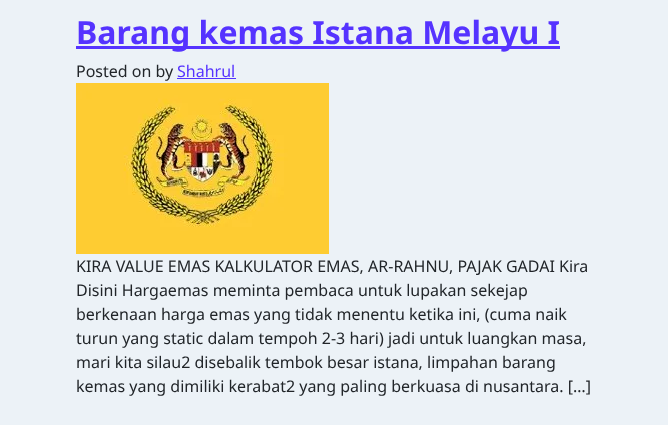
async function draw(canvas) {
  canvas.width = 668;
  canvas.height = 425;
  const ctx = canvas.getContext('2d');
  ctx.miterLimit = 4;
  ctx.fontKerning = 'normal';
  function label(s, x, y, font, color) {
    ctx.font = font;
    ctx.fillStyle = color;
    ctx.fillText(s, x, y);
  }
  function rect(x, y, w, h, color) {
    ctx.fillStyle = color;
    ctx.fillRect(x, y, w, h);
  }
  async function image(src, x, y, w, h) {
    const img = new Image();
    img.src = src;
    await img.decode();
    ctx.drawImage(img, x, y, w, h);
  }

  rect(0, 0, 668, 425, '#ecf2f7');
  rect(76, 46, 484, 3, '#53f');
  label('Barang kemas Istana Melayu I', 76, 44, 'bold 32px Noto Sans', '#53f');
  label('Posted on by', 76, 77, '16px Noto Sans', '#212529');
  label('Shahrul', 177, 77, '16px Noto Sans', '#53f');
  rect(177, 78, 59, 1, '#53f');
  await image('assets/img1.png', 76, 83, 253, 171);
  label('KIRA VALUE EMAS KALKULATOR EMAS, AR-RAHNU, PAJAK GADAI Kira', 76, 272, '16px Noto Sans', '#212529');
  label('Disini Hargaemas meminta pembaca untuk lupakan sekejap', 76, 296, '16px Noto Sans', '#212529');
  label('berkenaan harga emas yang tidak menentu ketika ini, (cuma naik', 76, 320, '16px Noto Sans', '#212529');
  label('turun yang static dalam tempoh 2-3 hari) jadi untuk luangkan masa,', 76, 344, '16px Noto Sans', '#212529');
  label('mari kita silau2 disebalik tembok besar istana, limpahan barang', 76, 368, '16px Noto Sans', '#212529');
  label('kemas yang dimiliki kerabat2 yang paling berkuasa di nusantara. […]', 76, 392, '16px Noto Sans', '#212529');
}

draw(document.querySelector('canvas'));
